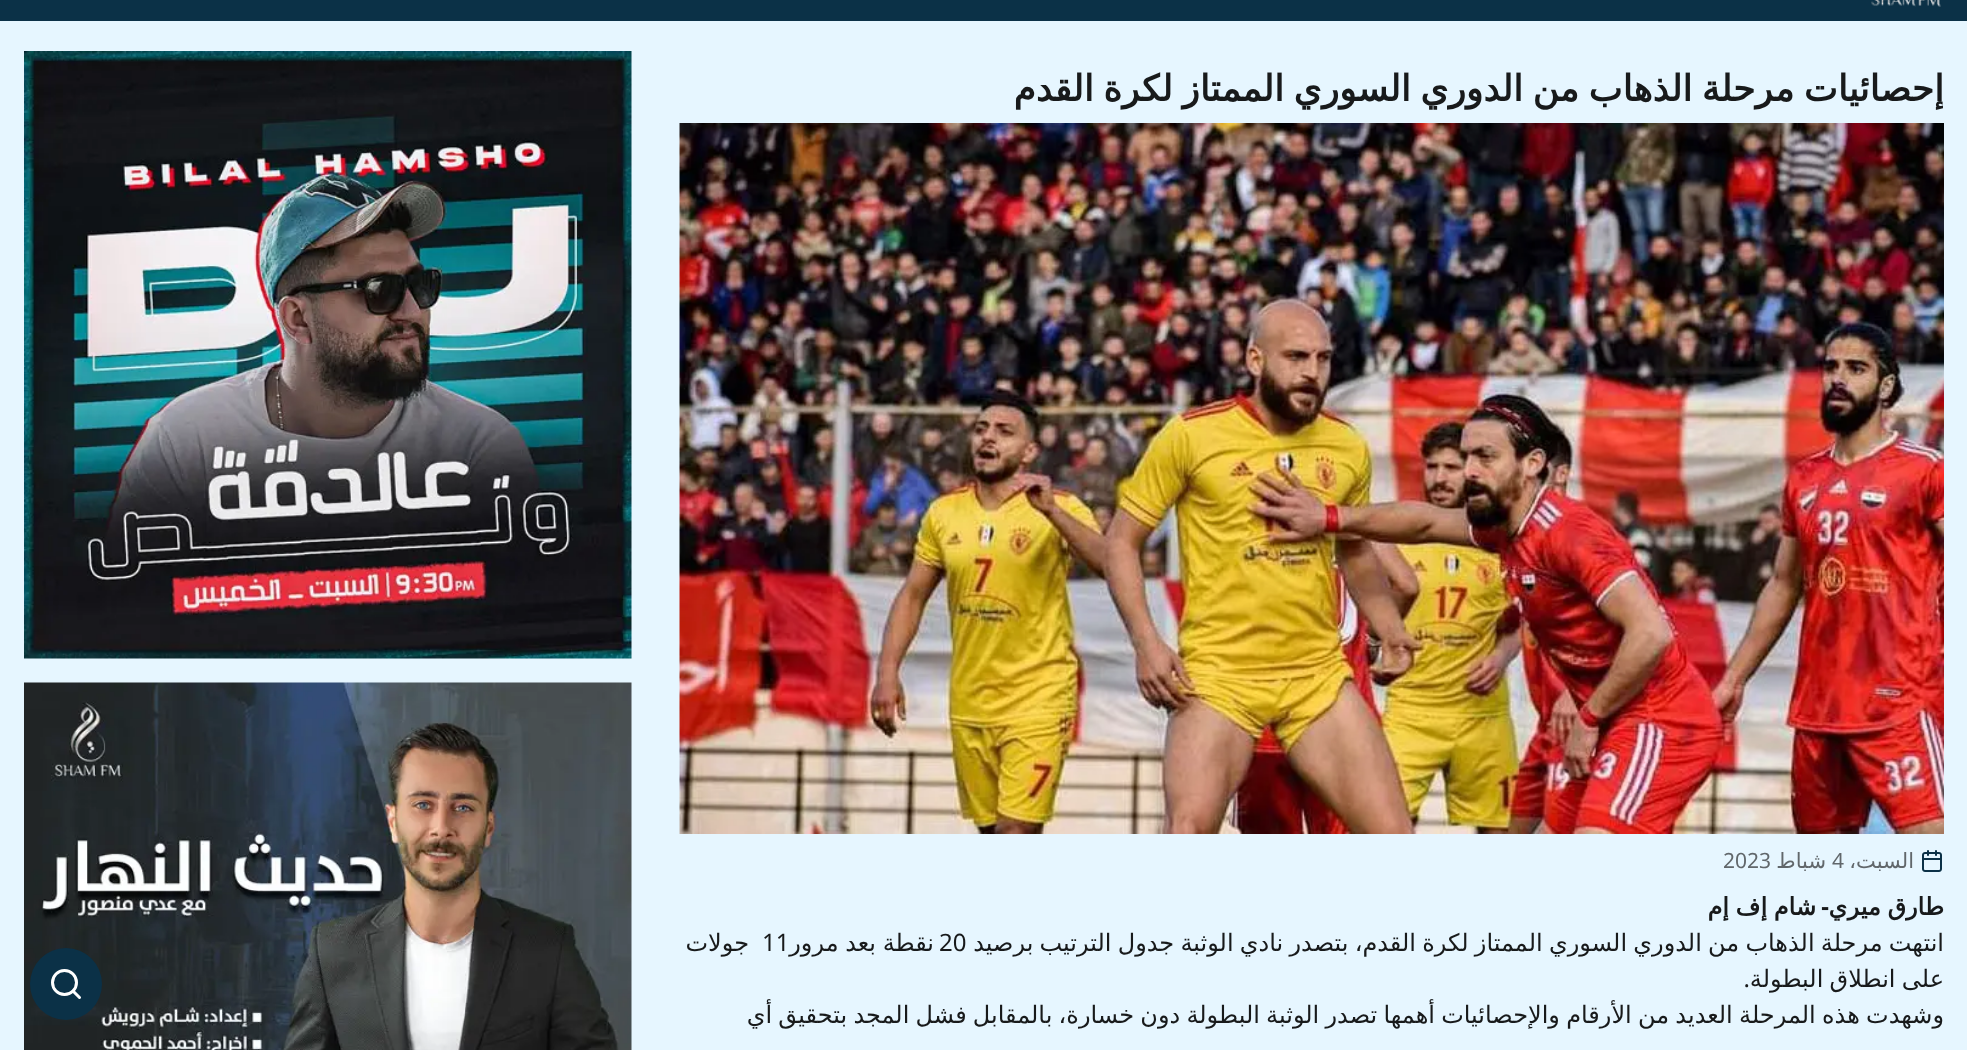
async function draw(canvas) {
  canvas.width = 1967;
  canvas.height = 1050;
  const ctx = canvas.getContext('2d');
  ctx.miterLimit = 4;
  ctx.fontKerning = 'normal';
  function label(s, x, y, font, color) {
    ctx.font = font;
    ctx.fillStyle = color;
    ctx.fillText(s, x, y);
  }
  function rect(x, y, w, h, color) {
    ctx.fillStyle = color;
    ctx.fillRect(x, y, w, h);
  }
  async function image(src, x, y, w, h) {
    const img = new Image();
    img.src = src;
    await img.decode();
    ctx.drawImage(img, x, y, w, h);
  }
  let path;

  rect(0, 0, 1967, 1050, '#e6f6ff');
  rect(0, 0, 1967, 21, '#0b3147');
  await image('assets/img1.png', 1871, 0, 70, 7);
  ctx.wordSpacing = '-2px';
  ctx.direction = 'rtl';
  label('إحصائيات مرحلة الذهاب من الدوري السوري الممتاز لكرة القدم', 1944, 101, 'bold 36px DejaVu Sans', '#181a1b');
  await image('assets/img2.png', 679, 123, 1265, 711);
  await image('assets/img3.png', 1922, 850, 20, 22);
  ctx.wordSpacing = '0px';
  label('السبت،', 1914, 868, '21px DejaVu Sans', '#61676b');
  ctx.direction = 'ltr';
  label('4', 1832, 868, '21px Noto Sans', '#61676b');
  ctx.direction = 'rtl';
  label('شباط', 1826, 868, '21px DejaVu Sans', '#61676b');
  ctx.direction = 'ltr';
  label('2023', 1723, 868, '21px Noto Sans', '#61676b');
  ctx.wordSpacing = '-1px';
  ctx.direction = 'rtl';
  label('طارق ميري', 1944, 915, 'bold 24px DejaVu Sans', '#181a1b');
  ctx.wordSpacing = '0px';
  label('-', 1829, 915, 'bold 24px Noto Sans', '#181a1b');
  ctx.wordSpacing = '-1px';
  label('شام إف إم', 1816, 915, 'bold 24px DejaVu Sans', '#181a1b');
  ctx.wordSpacing = '-1.4px';
  label('انتهت مرحلة الذهاب من الدوري السوري الممتاز لكرة القدم، بتصدر نادي الوثبة جدول الترتيب برصيد', 1944, 951, '24px DejaVu Sans', '#181a1b');
  ctx.wordSpacing = '0px';
  ctx.direction = 'ltr';
  label('20', 939, 951, '24px Noto Sans', '#181a1b');
  ctx.wordSpacing = '-1px';
  ctx.direction = 'rtl';
  label('نقطة بعد مرور', 934, 951, '24px DejaVu Sans', '#181a1b');
  ctx.wordSpacing = '0px';
  ctx.direction = 'ltr';
  label('11', 762, 951, '24px Noto Sans', '#181a1b');
  ctx.direction = 'rtl';
  label('جولات', 749, 951, '24px DejaVu Sans', '#181a1b');
  ctx.wordSpacing = '-1.4px';
  label('على انطلاق البطولة', 1944, 987, '24px DejaVu Sans', '#181a1b');
  ctx.wordSpacing = '0px';
  label('.', 1750, 987, '24px Noto Sans', '#181a1b');
  ctx.wordSpacing = '-1.4px';
  label('وشهدت هذه المرحلة العديد من الأرقام والإحصائيات أهمها تصدر الوثبة البطولة دون خسارة، بالمقابل فشل المجد بتحقيق أي', 1944, 1023, '24px DejaVu Sans', '#181a1b');
  await image('assets/img4.png', 24, 51, 608, 608);
  await image('assets/img5.png', 24, 682, 608, 368);
  ctx.fillStyle = '#0b3147';
  ctx.beginPath();
  ctx.arc(66, 984, 36, 0, 2 * Math.PI);
  ctx.fill();
  ctx.beginPath();
  ctx.arc(64.5, 982.5, 12, 0, 2 * Math.PI);
  ctx.strokeStyle = '#fff';
  ctx.lineWidth = 3;
  ctx.stroke();
  path = new Path2D('M79.5 997.5L73 991');
  ctx.lineCap = 'round';
  ctx.lineJoin = 'round';
  ctx.stroke(path);
}

draw(document.querySelector('canvas'));
